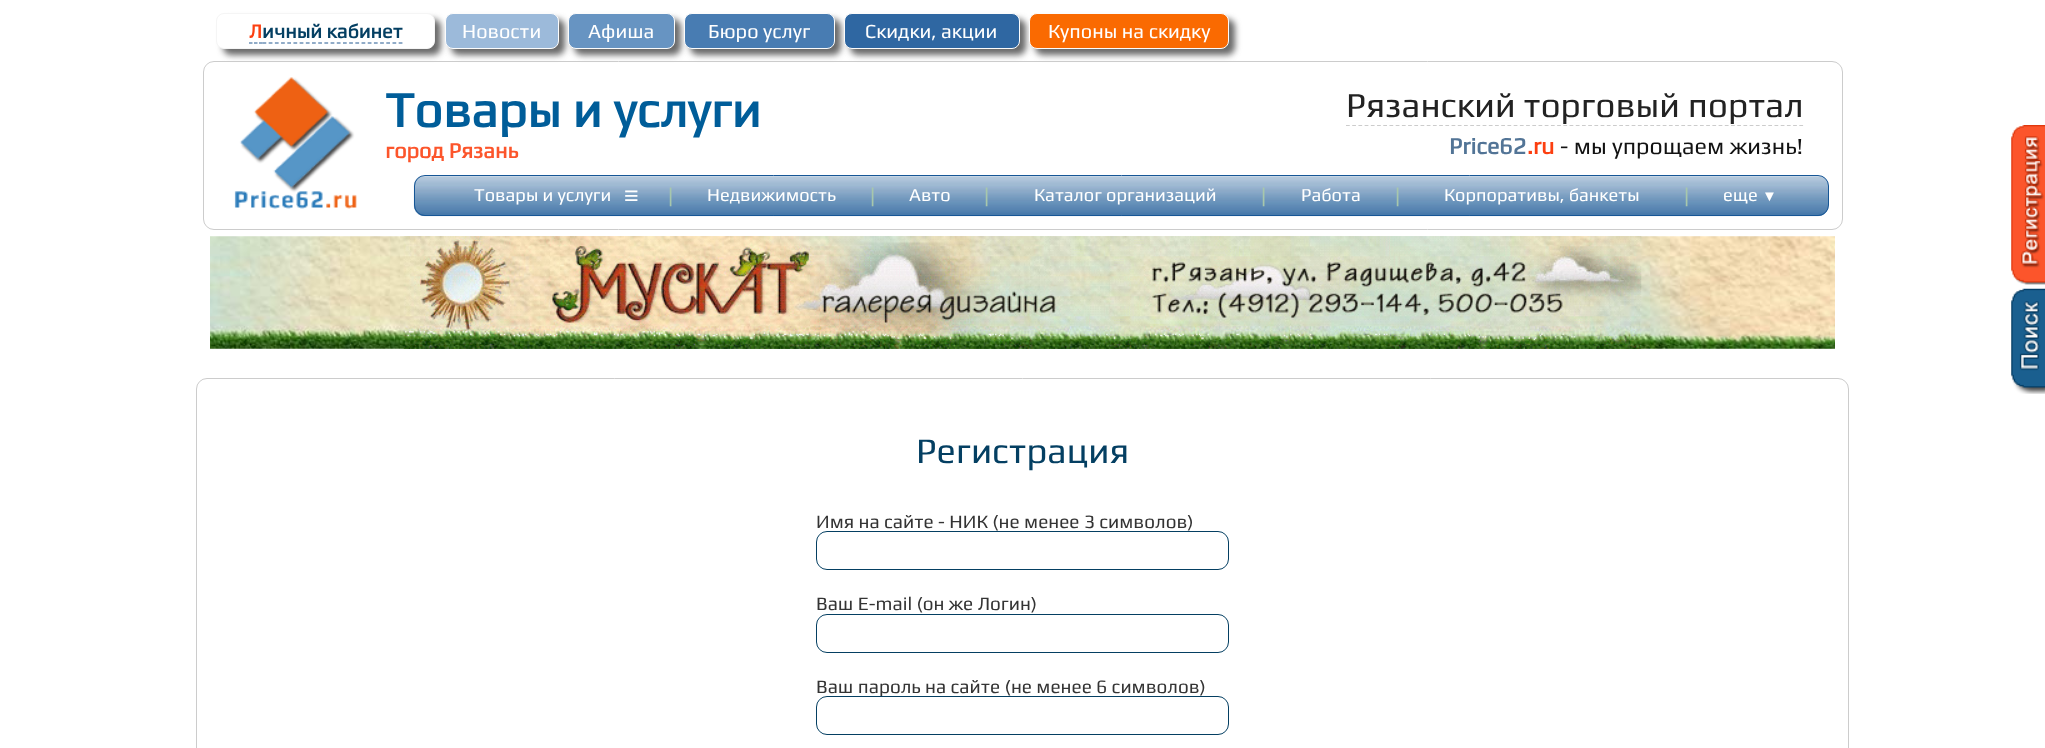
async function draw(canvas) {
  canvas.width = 2045;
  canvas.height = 748;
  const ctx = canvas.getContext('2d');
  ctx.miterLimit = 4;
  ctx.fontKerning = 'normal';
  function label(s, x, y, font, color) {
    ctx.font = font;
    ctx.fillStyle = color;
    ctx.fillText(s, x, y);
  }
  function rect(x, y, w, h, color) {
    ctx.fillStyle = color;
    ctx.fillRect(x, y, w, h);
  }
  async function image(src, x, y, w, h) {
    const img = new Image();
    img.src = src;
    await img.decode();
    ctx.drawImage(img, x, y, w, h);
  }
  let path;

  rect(0, 0, 2045, 748, '#fff');
  ctx.fillStyle = '#444444cc';
  ctx.filter = 'blur(3px)';
  ctx.beginPath();
  ctx.roundRect(223, 19, 218, 36, 8);
  ctx.fill();
  ctx.filter = 'none';
  ctx.fillStyle = '#fff';
  ctx.beginPath();
  ctx.roundRect(216.5, 13.5, 218, 35, 7.5);
  ctx.fill();
  ctx.strokeStyle = '#f5f5f5';
  ctx.stroke();
  label('Л', 249, 38, 'bold 20px Play', '#fc3f10');
  path = new Path2D('M249 43H252.5M254 43H257.5M259 43H262.5');
  ctx.strokeStyle = '#255b92';
  ctx.lineWidth = 1.2;
  ctx.stroke(path);
  path = new Path2D('M262.5 43H402.5');
  ctx.setLineDash([3.75, 2.44]);
  ctx.stroke(path);
  label('ичный кабинет', 262, 38, 'bold 20px Play', '#043f62');
  ctx.fillStyle = '#444444cc';
  ctx.filter = 'blur(3px)';
  ctx.beginPath();
  ctx.roundRect(451, 19, 114, 36, 8);
  ctx.fill();
  ctx.filter = 'none';
  ctx.fillStyle = '#9cbada';
  ctx.beginPath();
  ctx.roundRect(445.5, 13.5, 113, 35, 7.5);
  ctx.fill();
  ctx.strokeStyle = '#fcfcfc';
  ctx.lineWidth = 1;
  ctx.setLineDash([]);
  ctx.stroke();
  label('Новости', 462, 38, '20px Play', '#fff');
  ctx.fillStyle = '#444444cc';
  ctx.filter = 'blur(3px)';
  ctx.beginPath();
  ctx.roundRect(574, 19, 107, 36, 8);
  ctx.fill();
  ctx.filter = 'none';
  ctx.fillStyle = '#6794c2';
  ctx.beginPath();
  ctx.roundRect(568.5, 13.5, 106, 35, 7.5);
  ctx.fill();
  ctx.stroke();
  label('Афиша', 588, 38, '20px Play', '#fff');
  ctx.fillStyle = '#444444cc';
  ctx.filter = 'blur(3px)';
  ctx.beginPath();
  ctx.roundRect(690, 19, 151, 36, 8);
  ctx.fill();
  ctx.filter = 'none';
  ctx.fillStyle = '#487cb2';
  ctx.beginPath();
  ctx.roundRect(684.5, 13.5, 150, 35, 7.5);
  ctx.fill();
  ctx.stroke();
  label('Бюро услуг', 708, 38, '20px Play', '#fff');
  ctx.fillStyle = '#444444cc';
  ctx.filter = 'blur(3px)';
  ctx.beginPath();
  ctx.roundRect(850, 19, 176, 36, 8);
  ctx.fill();
  ctx.filter = 'none';
  ctx.fillStyle = '#2f67a2';
  ctx.beginPath();
  ctx.roundRect(844.5, 13.5, 175, 35, 7.5);
  ctx.fill();
  ctx.stroke();
  label('Скидки, акции', 865, 38, '20px Play', '#fff');
  ctx.fillStyle = '#444444cc';
  ctx.filter = 'blur(3px)';
  ctx.beginPath();
  ctx.roundRect(1035, 19, 200, 36, 8);
  ctx.fill();
  ctx.filter = 'none';
  ctx.fillStyle = '#fa6a01';
  ctx.beginPath();
  ctx.roundRect(1029.5, 13.5, 199, 35, 7.5);
  ctx.fill();
  ctx.stroke();
  label('Купоны на скидку', 1048, 38, '20px Play', '#fff');
  ctx.beginPath();
  ctx.roundRect(203.5, 61.5, 1639, 168, 10.5);
  ctx.strokeStyle = '#ccc';
  ctx.stroke();
  await image('assets/img1.png', 234, 77, 123, 132);
  label('Товары и услуги', 385, 127, 'bold 50px Play', '#005d99');
  label('город Рязань', 385, 158, 'bold 21.75px Play', '#fc552b');
  label('Рязанский торговый портал', 1346, 117, '35px Play', '#222');
  path = new Path2D('M1346 125.5H1804');
  ctx.lineWidth = 1.2;
  ctx.setLineDash([3.75, 2.46]);
  ctx.stroke(path);
  label('Price62', 1449, 154, 'bold 23.25px Play', '#527496');
  label('.ru', 1527, 154, 'bold 23.25px Play', '#fc3f10');
  label('- мы упрощаем жизнь!', 1560, 154, '23.25px Play', '#121212');
  await image('assets/img2.png', 413, 176, 1416, 41);
  ctx.beginPath();
  ctx.roundRect(414.5, 175.5, 1414, 40, 10.5);
  ctx.strokeStyle = '#165696';
  ctx.lineWidth = 1;
  ctx.setLineDash([]);
  ctx.stroke();
  label('Товары и услуги', 474, 201, '18.25px Play', '#fff');
  label('≡', 624, 204, '25px Liberation Sans', '#fff');
  label('|', 668, 202, '20px Liberation Sans', '#a7c7ac');
  label('Недвижимость', 707, 201, '18.25px Play', '#fff');
  label('|', 870, 202, '20px Liberation Sans', '#a7c7ac');
  label('Авто', 909, 201, '18.25px Play', '#fff');
  label('|', 984, 202, '20px Liberation Sans', '#a7c7ac');
  label('Каталог организаций', 1034, 201, '18.25px Play', '#fff');
  label('|', 1261, 202, '20px Liberation Sans', '#a7c7ac');
  label('Работа', 1301, 201, '18.25px Play', '#fff');
  label('|', 1395, 202, '20px Liberation Sans', '#a7c7ac');
  label('Корпоративы, банкеты', 1444, 201, '18.25px Play', '#fff');
  label('|', 1684, 202, '20px Liberation Sans', '#a7c7ac');
  label('еще', 1723, 201, '18.25px Play', '#fff');
  label('▼', 1762, 201, '15px Liberation Sans', '#fff');
  await image('assets/img3.png', 2011, 125, 34, 160);
  await image('assets/img4.png', 210, 236, 1625, 113);
  await image('assets/img5.png', 403, 236, 1239, 113);
  await image('assets/img6.png', 2011, 288, 34, 106);
  ctx.beginPath();
  ctx.roundRect(196.5, 378.5, 1652, 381, 10.5);
  ctx.strokeStyle = '#ccc';
  ctx.stroke();
  label('Регистрация', 916, 463, '36px Play', '#043f62');
  label('Имя на сайте - НИК (не менее 3 символов)', 816, 528, '19px Play', '#343434');
  ctx.beginPath();
  ctx.roundRect(816.5, 531.5, 412, 38, 10.5);
  ctx.strokeStyle = '#043f62';
  ctx.stroke();
  label('Ваш E-mail (он же Логин)', 816, 610, '19px Play', '#343434');
  ctx.beginPath();
  ctx.roundRect(816.5, 614.5, 412, 38, 10.5);
  ctx.stroke();
  label('Ваш пароль на сайте (не менее 6 символов)', 816, 693, '19px Play', '#343434');
  ctx.fillStyle = '#fff';
  ctx.beginPath();
  ctx.roundRect(816.5, 696.5, 412, 38, 10.5);
  ctx.fill();
  ctx.stroke();
}

draw(document.querySelector('canvas'));
